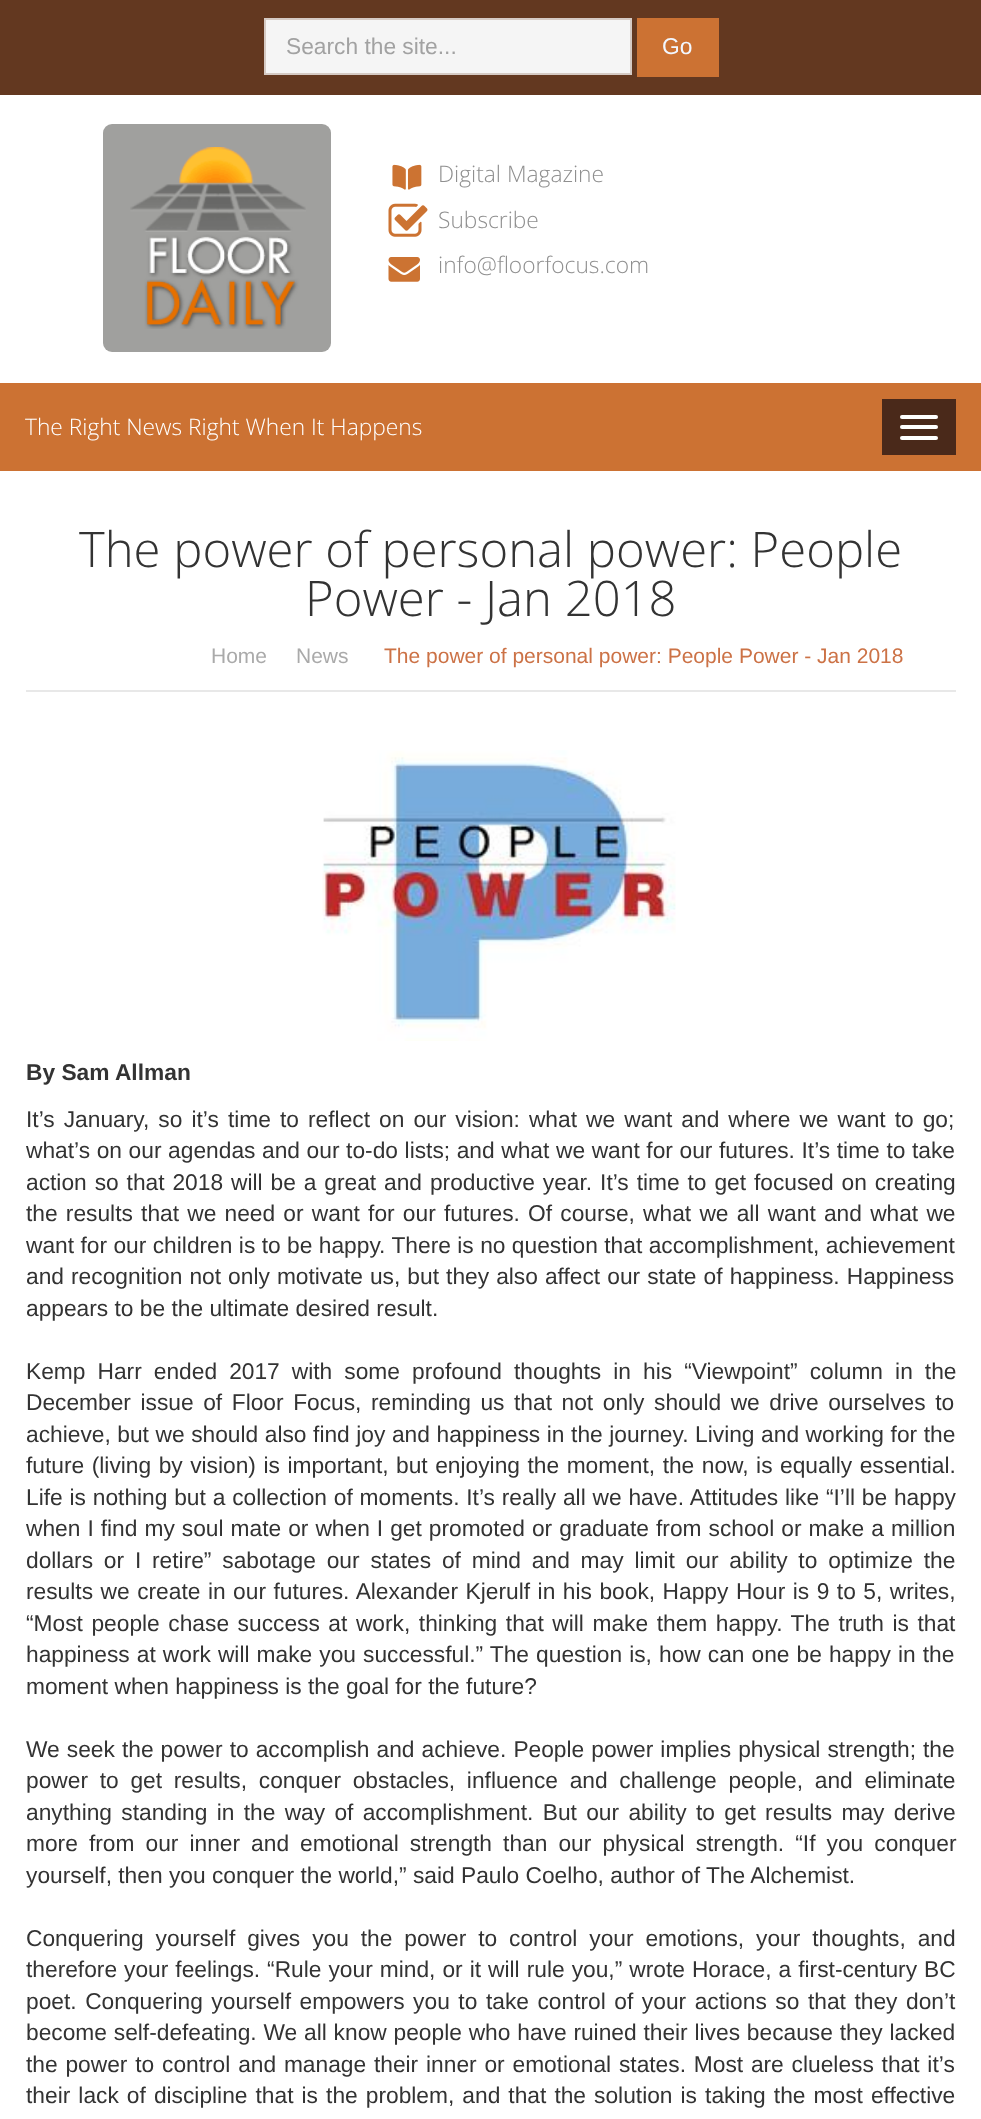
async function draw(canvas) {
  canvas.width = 981;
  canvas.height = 2119;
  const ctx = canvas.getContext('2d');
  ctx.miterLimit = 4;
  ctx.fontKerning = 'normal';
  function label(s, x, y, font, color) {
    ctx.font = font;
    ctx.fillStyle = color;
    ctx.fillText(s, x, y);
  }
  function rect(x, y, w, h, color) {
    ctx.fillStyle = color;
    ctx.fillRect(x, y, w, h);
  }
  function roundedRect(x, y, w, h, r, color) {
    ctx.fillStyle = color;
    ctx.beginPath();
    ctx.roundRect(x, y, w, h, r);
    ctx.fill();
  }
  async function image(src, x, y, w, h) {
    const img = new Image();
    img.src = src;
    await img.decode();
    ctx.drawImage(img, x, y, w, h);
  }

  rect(0, 0, 981, 2119, '#fff');
  rect(0, 383, 981, 88, '#cc7233');
  rect(0, 0, 981, 95, '#633820');
  ctx.fillStyle = '#f5f5f5';
  ctx.beginPath();
  ctx.rect(265, 19, 366, 55);
  ctx.fill();
  ctx.strokeStyle = '#d5cac4';
  ctx.lineWidth = 2;
  ctx.stroke();
  label('Search the site...', 286, 54, '22.75px Liberation Sans', '#a2a2a2');
  rect(637, 18, 82, 59, '#cc7233');
  label('Go', 662, 54, '22.75px Liberation Sans', '#f2f7ff');
  roundedRect(103, 124, 228, 228, 9, '#a0a09e');
  await image('assets/img1.png', 130, 147, 176, 182);
  await image('assets/img2.png', 392, 164, 30, 26);
  label('Digital Magazine', 438, 182, '300 22.75px Open Sans', '#8f8f8f');
  await image('assets/img3.png', 388, 203, 40, 34);
  label('Subscribe', 438, 228, '300 22.75px Open Sans', '#8f8f8f');
  await image('assets/img4.png', 388, 257, 32, 25);
  label('info@floorfocus.com', 438, 273, '300 22.75px Open Sans', '#8f8f8f');
  label('The Right News Right When It Happens', 25, 435, '300 22.75px Open Sans', '#fff');
  rect(882, 399, 74, 56, '#4a291a');
  roundedRect(900, 415, 38, 4, 2, '#fff');
  roundedRect(900, 425, 38, 4, 2, '#fff');
  roundedRect(900, 436, 38, 4, 2, '#fff');
  label('The power of personal power: People', 79, 567, '300 49px Open Sans', '#333');
  label('Power - Jan 2018', 305, 616, '300 49px Open Sans', '#333');
  rect(26, 690, 930, 2, '#e8e8e8');
  label('Home', 211, 663, '21px Liberation Sans', '#aaa');
  label('', 276, 663, '14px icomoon', '#aaa');
  label('News', 296, 663, '21px Liberation Sans', '#aaa');
  label('', 358, 663, '14px icomoon', '#aaa');
  label('The power of personal power: People Power - Jan 2018', 384, 663, '21px Liberation Sans', '#cc7246');
  await image('assets/img5.png', 322, 750, 354, 291);
  label('By Sam Allman', 26, 1080, 'bold 22.75px Liberation Sans', '#333');
  ctx.wordSpacing = '2.75px';
  label('It’s January, so it’s time to reflect on our vision: what we want and where we want to go;', 26, 1127, '22.75px Liberation Sans', '#333');
  ctx.wordSpacing = '0.3px';
  label('what’s on our agendas and our to-do lists; and what we want for our futures. It’s time to take', 26, 1158, '22.75px Liberation Sans', '#333');
  ctx.wordSpacing = '1.6px';
  label('action so that 2018 will be a great and productive year. It’s time to get focused on creating', 26, 1190, '22.75px Liberation Sans', '#333');
  ctx.wordSpacing = '1.9px';
  label('the results that we need or want for our futures. Of course, what we all want and what we', 26, 1221, '22.75px Liberation Sans', '#333');
  ctx.wordSpacing = '0.1px';
  label('want for our children is to be happy. There is no question that accomplishment, achievement', 26, 1253, '22.75px Liberation Sans', '#333');
  ctx.wordSpacing = '0.75px';
  label('and recognition not only motivate us, but they also affect our state of happiness. Happiness', 26, 1284, '22.75px Liberation Sans', '#333');
  ctx.wordSpacing = '0px';
  label('appears to be the ultimate desired result.', 26, 1316, '22.75px Liberation Sans', '#333');
  ctx.wordSpacing = '5.75px';
  label('Kemp Harr ended 2017 with some profound thoughts in his “Viewpoint” column in the', 26, 1379, '22.75px Liberation Sans', '#333');
  ctx.wordSpacing = '3.25px';
  label('December issue of Floor Focus, reminding us that not only should we drive ourselves to', 26, 1410, '22.75px Liberation Sans', '#333');
  ctx.wordSpacing = '0.25px';
  label('achieve, but we should also find joy and happiness in the journey. Living and working for the', 26, 1442, '22.75px Liberation Sans', '#333');
  ctx.wordSpacing = '1.2px';
  label('future (living by vision) is important, but enjoying the moment, the now, is equally essential.', 26, 1473, '22.75px Liberation Sans', '#333');
  ctx.wordSpacing = '0.5px';
  label('Life is nothing but a collection of moments. It’s really all we have. Attitudes like “I’ll be happy', 26, 1505, '22.75px Liberation Sans', '#333');
  ctx.wordSpacing = '0.7px';
  label('when I find my soul mate or when I get promoted or graduate from school or make a million', 26, 1536, '22.75px Liberation Sans', '#333');
  ctx.wordSpacing = '4.5px';
  label('dollars or I retire” sabotage our states of mind and may limit our ability to optimize the', 26, 1568, '22.75px Liberation Sans', '#333');
  ctx.wordSpacing = '1.2px';
  label('results we create in our futures. Alexander Kjerulf in his book, Happy Hour is 9 to 5, writes,', 26, 1599, '22.75px Liberation Sans', '#333');
  ctx.wordSpacing = '2.25px';
  label('“Most people chase success at work, thinking that will make them happy. The truth is that', 26, 1631, '22.75px Liberation Sans', '#333');
  ctx.wordSpacing = '0.75px';
  label('happiness at work will make you successful.” The question is, how can one be happy in the', 26, 1662, '22.75px Liberation Sans', '#333');
  ctx.wordSpacing = '0px';
  label('moment when happiness is the goal for the future?', 26, 1694, '22.75px Liberation Sans', '#333');
  ctx.wordSpacing = '0.75px';
  label('We seek the power to accomplish and achieve. People power implies physical strength; the', 26, 1757, '22.75px Liberation Sans', '#333');
  ctx.wordSpacing = '5.4px';
  label('power to get results, conquer obstacles, influence and challenge people, and eliminate', 26, 1788, '22.75px Liberation Sans', '#333');
  ctx.wordSpacing = '3px';
  label('anything standing in the way of accomplishment. But our ability to get results may derive', 26, 1820, '22.75px Liberation Sans', '#333');
  ctx.wordSpacing = '4.75px';
  label('more from our inner and emotional strength than our physical strength. “If you conquer', 26, 1851, '22.75px Liberation Sans', '#333');
  ctx.wordSpacing = '0px';
  label('yourself, then you conquer the world,” said Paulo Coelho, author of The Alchemist.', 26, 1883, '22.75px Liberation Sans', '#333');
  ctx.wordSpacing = '5.6px';
  label('Conquering yourself gives you the power to control your emotions, your thoughts, and', 26, 1946, '22.75px Liberation Sans', '#333');
  ctx.wordSpacing = '0.7px';
  label('therefore your feelings. “Rule your mind, or it will rule you,” wrote Horace, a first-century BC', 26, 1977, '22.75px Liberation Sans', '#333');
  ctx.wordSpacing = '2.25px';
  label('poet. Conquering yourself empowers you to take control of your actions so that they don’t', 26, 2009, '22.75px Liberation Sans', '#333');
  ctx.wordSpacing = '0.5px';
  label('become self-defeating. We all know people who have ruined their lives because they lacked', 26, 2040, '22.75px Liberation Sans', '#333');
  ctx.wordSpacing = '1.5px';
  label('the power to control and manage their inner or emotional states. Most are clueless that it’s', 26, 2072, '22.75px Liberation Sans', '#333');
  ctx.wordSpacing = '1.75px';
  label('their lack of discipline that is the problem, and that the solution is taking the most effective', 26, 2103, '22.75px Liberation Sans', '#333');
}

draw(document.querySelector('canvas'));
